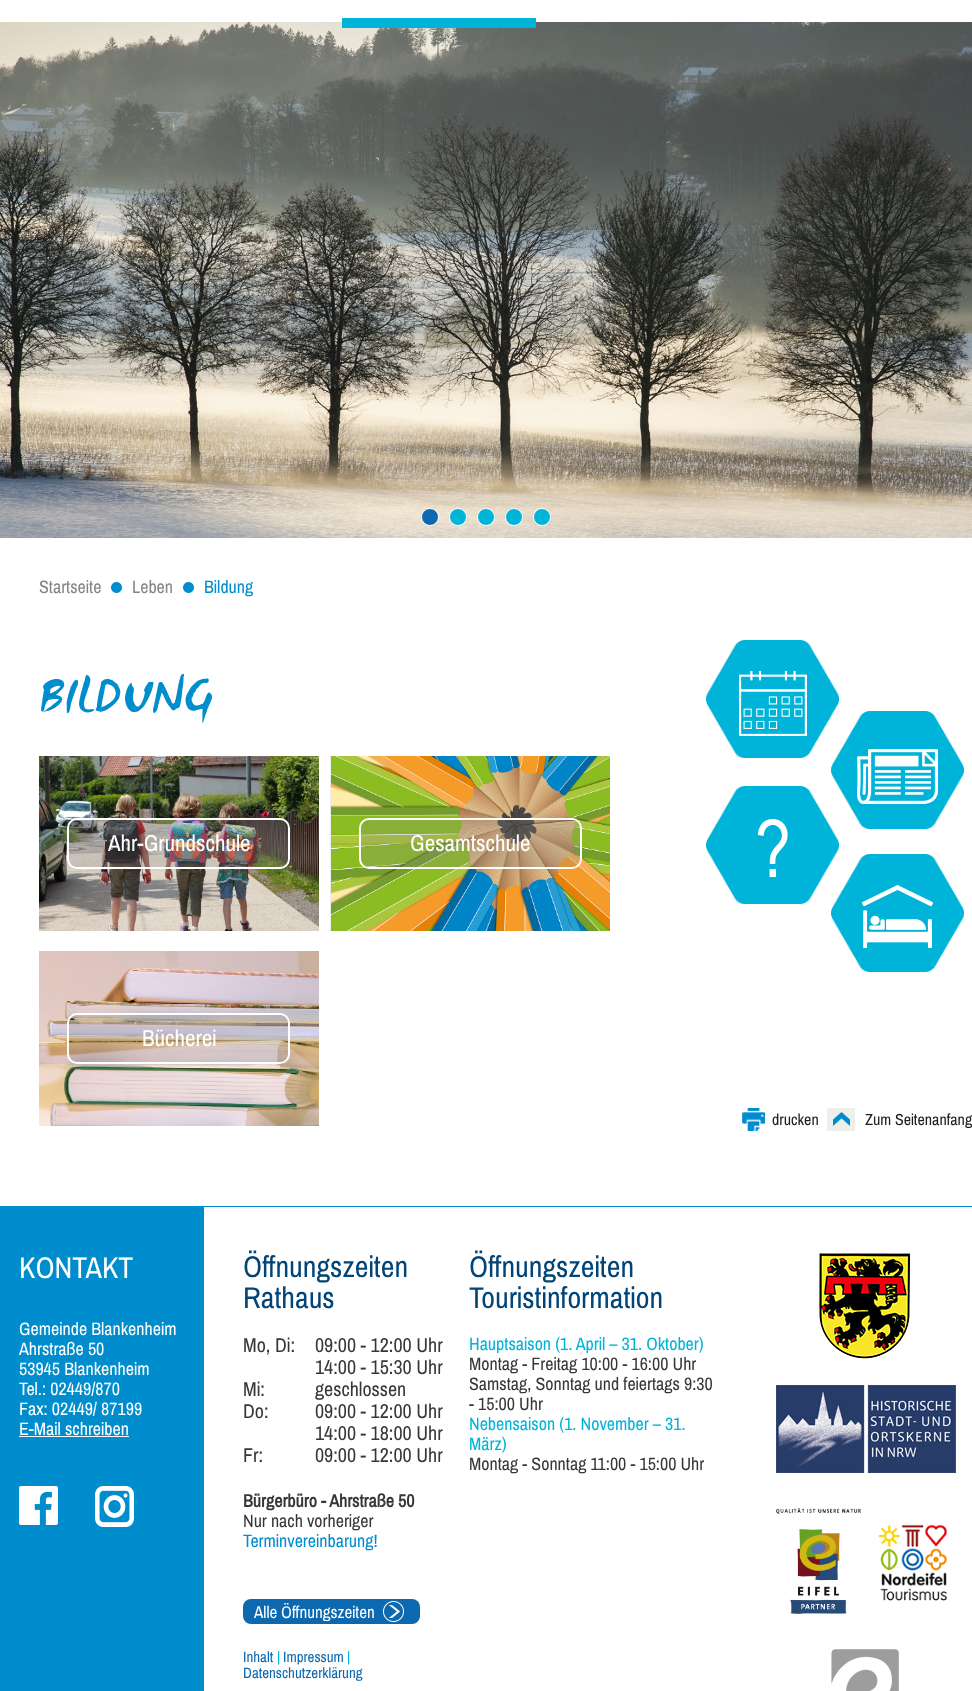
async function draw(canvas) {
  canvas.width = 972;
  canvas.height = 1691;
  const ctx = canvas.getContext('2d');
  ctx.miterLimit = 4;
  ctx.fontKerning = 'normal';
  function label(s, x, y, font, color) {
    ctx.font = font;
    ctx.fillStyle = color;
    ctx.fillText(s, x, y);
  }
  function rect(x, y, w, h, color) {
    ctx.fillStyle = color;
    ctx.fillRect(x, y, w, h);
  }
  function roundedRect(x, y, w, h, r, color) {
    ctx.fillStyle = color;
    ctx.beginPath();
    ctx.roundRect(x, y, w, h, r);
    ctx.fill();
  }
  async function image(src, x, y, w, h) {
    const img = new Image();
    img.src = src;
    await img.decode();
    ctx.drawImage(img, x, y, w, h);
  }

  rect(0, 0, 972, 1691, '#fff');
  await image('assets/img1.png', 0, 22, 972, 516);
  rect(342, 18, 194, 10, '#00b3d8');
  ctx.fillStyle = '#0c68af';
  ctx.beginPath();
  ctx.arc(430, 517, 8.5, 0, 2 * Math.PI);
  ctx.fill();
  ctx.strokeStyle = '#fff';
  ctx.stroke();
  ctx.fillStyle = '#00b3d8';
  ctx.beginPath();
  ctx.arc(458, 517, 8.5, 0, 2 * Math.PI);
  ctx.fill();
  ctx.stroke();
  ctx.beginPath();
  ctx.arc(486, 517, 8.5, 0, 2 * Math.PI);
  ctx.fill();
  ctx.stroke();
  ctx.beginPath();
  ctx.arc(514, 517, 8.5, 0, 2 * Math.PI);
  ctx.fill();
  ctx.stroke();
  ctx.beginPath();
  ctx.arc(542, 517, 8.5, 0, 2 * Math.PI);
  ctx.fill();
  ctx.stroke();
  await image('assets/img2.png', 111, 582, 11, 11);
  label('Startseite', 39, 593, '18px Archivo Narrow', '#858585');
  await image('assets/img2.png', 183, 582, 11, 11);
  label('Leben', 132, 593, '18px Archivo Narrow', '#858585');
  label('Bildung', 204, 593, '18px Archivo Narrow', '#008dcd');
  label('BILDUNG', 39, 710, '54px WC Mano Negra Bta', '#008dcd');
  await image('assets/img3.png', 39, 756, 280, 175);
  ctx.fillStyle = '#8484843d';
  ctx.beginPath();
  ctx.roundRect(68, 819, 221, 49, 9);
  ctx.fill();
  ctx.lineWidth = 2;
  ctx.stroke();
  label('Ahr-Grundschule', 108, 851, '23px Archivo Narrow', '#fff');
  rect(330, 756, 1, 175, '#ececec');
  await image('assets/img4.png', 331, 756, 279, 175);
  ctx.fillStyle = '#8484843d';
  ctx.beginPath();
  ctx.roundRect(360, 819, 221, 49, 9);
  ctx.fill();
  ctx.stroke();
  label('Gesamtschule', 410, 851, '23px Archivo Narrow', '#fff');
  await image('assets/img5.png', 39, 951, 280, 175);
  ctx.fillStyle = '#8484843d';
  ctx.beginPath();
  ctx.roundRect(68, 1014, 221, 49, 9);
  ctx.fill();
  ctx.stroke();
  label('Bücherei', 142, 1046, '23px Archivo Narrow', '#fff');
  await image('assets/img6.png', 706, 640, 133, 118);
  await image('assets/img7.png', 739, 671, 68, 65);
  await image('assets/img8.png', 831, 711, 133, 118);
  await image('assets/img9.png', 857, 749, 81, 55);
  await image('assets/img10.png', 706, 786, 133, 118);
  await image('assets/img11.png', 757, 819, 31, 58);
  await image('assets/img12.png', 831, 854, 133, 118);
  await image('assets/img13.png', 862, 885, 71, 63);
  await image('assets/img14.png', 742, 1108, 23, 23);
  label('drucken', 772, 1125, '16px Archivo Narrow', '#202020');
  await image('assets/img15.png', 827, 1108, 28, 23);
  label('Zum Seitenanfang', 865, 1125, '16px Archivo Narrow', '#202020');
  rect(0, 1207, 204, 484, '#008dcd');
  rect(0, 1206, 972, 1, '#008dcd');
  label('KONTAKT', 19, 1278, '30px Archivo Narrow', '#fff');
  label('Gemeinde Blankenheim', 19, 1335, '18px Archivo Narrow', '#fff');
  label('Ahrstraße 50', 19, 1355, '18px Archivo Narrow', '#fff');
  label('53945 Blankenheim', 19, 1375, '18px Archivo Narrow', '#fff');
  label('Tel.: 02449/870', 19, 1395, '18px Archivo Narrow', '#fff');
  label('Fax: 02449/ 87199', 19, 1415, '18px Archivo Narrow', '#fff');
  label('E-Mail schreiben', 19, 1435, '18px Archivo Narrow', '#fff');
  rect(19, 1436, 110, 1, '#fff');
  await image('assets/img16.png', 19, 1486, 39, 39);
  await image('assets/img17.png', 95, 1486, 39, 41);
  label('Öffnungszeiten', 243, 1277, '30px Archivo Narrow', '#004478');
  label('Rathaus', 243, 1308, '30px Archivo Narrow', '#004478');
  label('Mo, Di:', 243, 1352, '20px Archivo Narrow', '#373737');
  label('09:00 - 12:00 Uhr', 315, 1352, '20px Archivo Narrow', '#373737');
  label('14:00 - 15:30 Uhr', 315, 1374, '20px Archivo Narrow', '#373737');
  label('Mi:', 243, 1396, '20px Archivo Narrow', '#373737');
  label('geschlossen', 315, 1396, '20px Archivo Narrow', '#373737');
  label('Do:', 243, 1418, '20px Archivo Narrow', '#373737');
  label('09:00 - 12:00 Uhr', 315, 1418, '20px Archivo Narrow', '#373737');
  label('14:00 - 18:00 Uhr', 315, 1440, '20px Archivo Narrow', '#373737');
  label('Fr:', 243, 1462, '20px Archivo Narrow', '#373737');
  label('09:00 - 12:00 Uhr', 315, 1462, '20px Archivo Narrow', '#373737');
  label('Bürgerbüro - Ahrstraße 50', 243, 1507, 'bold 18px Archivo Narrow', '#373737');
  label('Nur nach vorheriger', 243, 1527, '18px Archivo Narrow', '#373737');
  label('Terminvereinbarung!', 243, 1547, '18px Archivo Narrow', '#008dcd');
  roundedRect(243, 1599, 177, 25, 8, '#0c68af');
  await image('assets/img18.png', 383, 1601, 21, 21);
  label('Alle Öffnungszeiten', 254, 1618, '17px Archivo Narrow', '#fff');
  label('Inhalt', 243, 1662, '15px Archivo Narrow', '#0c68af');
  label('|', 277, 1662, '15px Archivo Narrow', '#00b3d8');
  label('Impressum', 283, 1662, '15px Archivo Narrow', '#0c68af');
  label('|', 347, 1662, '15px Archivo Narrow', '#00b3d8');
  label('Datenschutzerklärung', 243, 1678, '15px Archivo Narrow', '#0c68af');
  label('Öffnungszeiten', 469, 1277, '30px Archivo Narrow', '#004478');
  label('Touristinformation', 469, 1308, '30px Archivo Narrow', '#004478');
  label('Hauptsaison (1. April – 31. Oktober)', 469, 1350, '18px Archivo Narrow', '#00b3d8');
  label('Montag - Freitag 10:00 - 16:00 Uhr', 469, 1370, '18px Archivo Narrow', '#373737');
  label('Samstag, Sonntag und feiertags 9:30', 469, 1390, '18px Archivo Narrow', '#373737');
  label('- 15:00 Uhr', 469, 1410, '18px Archivo Narrow', '#373737');
  label('Nebensaison (1. November – 31.', 469, 1430, '18px Archivo Narrow', '#00b3d8');
  label('März)', 469, 1450, '18px Archivo Narrow', '#00b3d8');
  label('Montag - Sonntag 11:00 - 15:00 Uhr', 469, 1470, '18px Archivo Narrow', '#373737');
  await image('assets/img19.png', 819, 1253, 92, 106);
  await image('assets/img20.png', 776, 1385, 180, 88);
  await image('assets/img21.png', 776, 1508, 85, 106);
  await image('assets/img22.png', 878, 1524, 70, 77);
  await image('assets/img23.png', 831, 1649, 68, 42);
}

draw(document.querySelector('canvas'));
